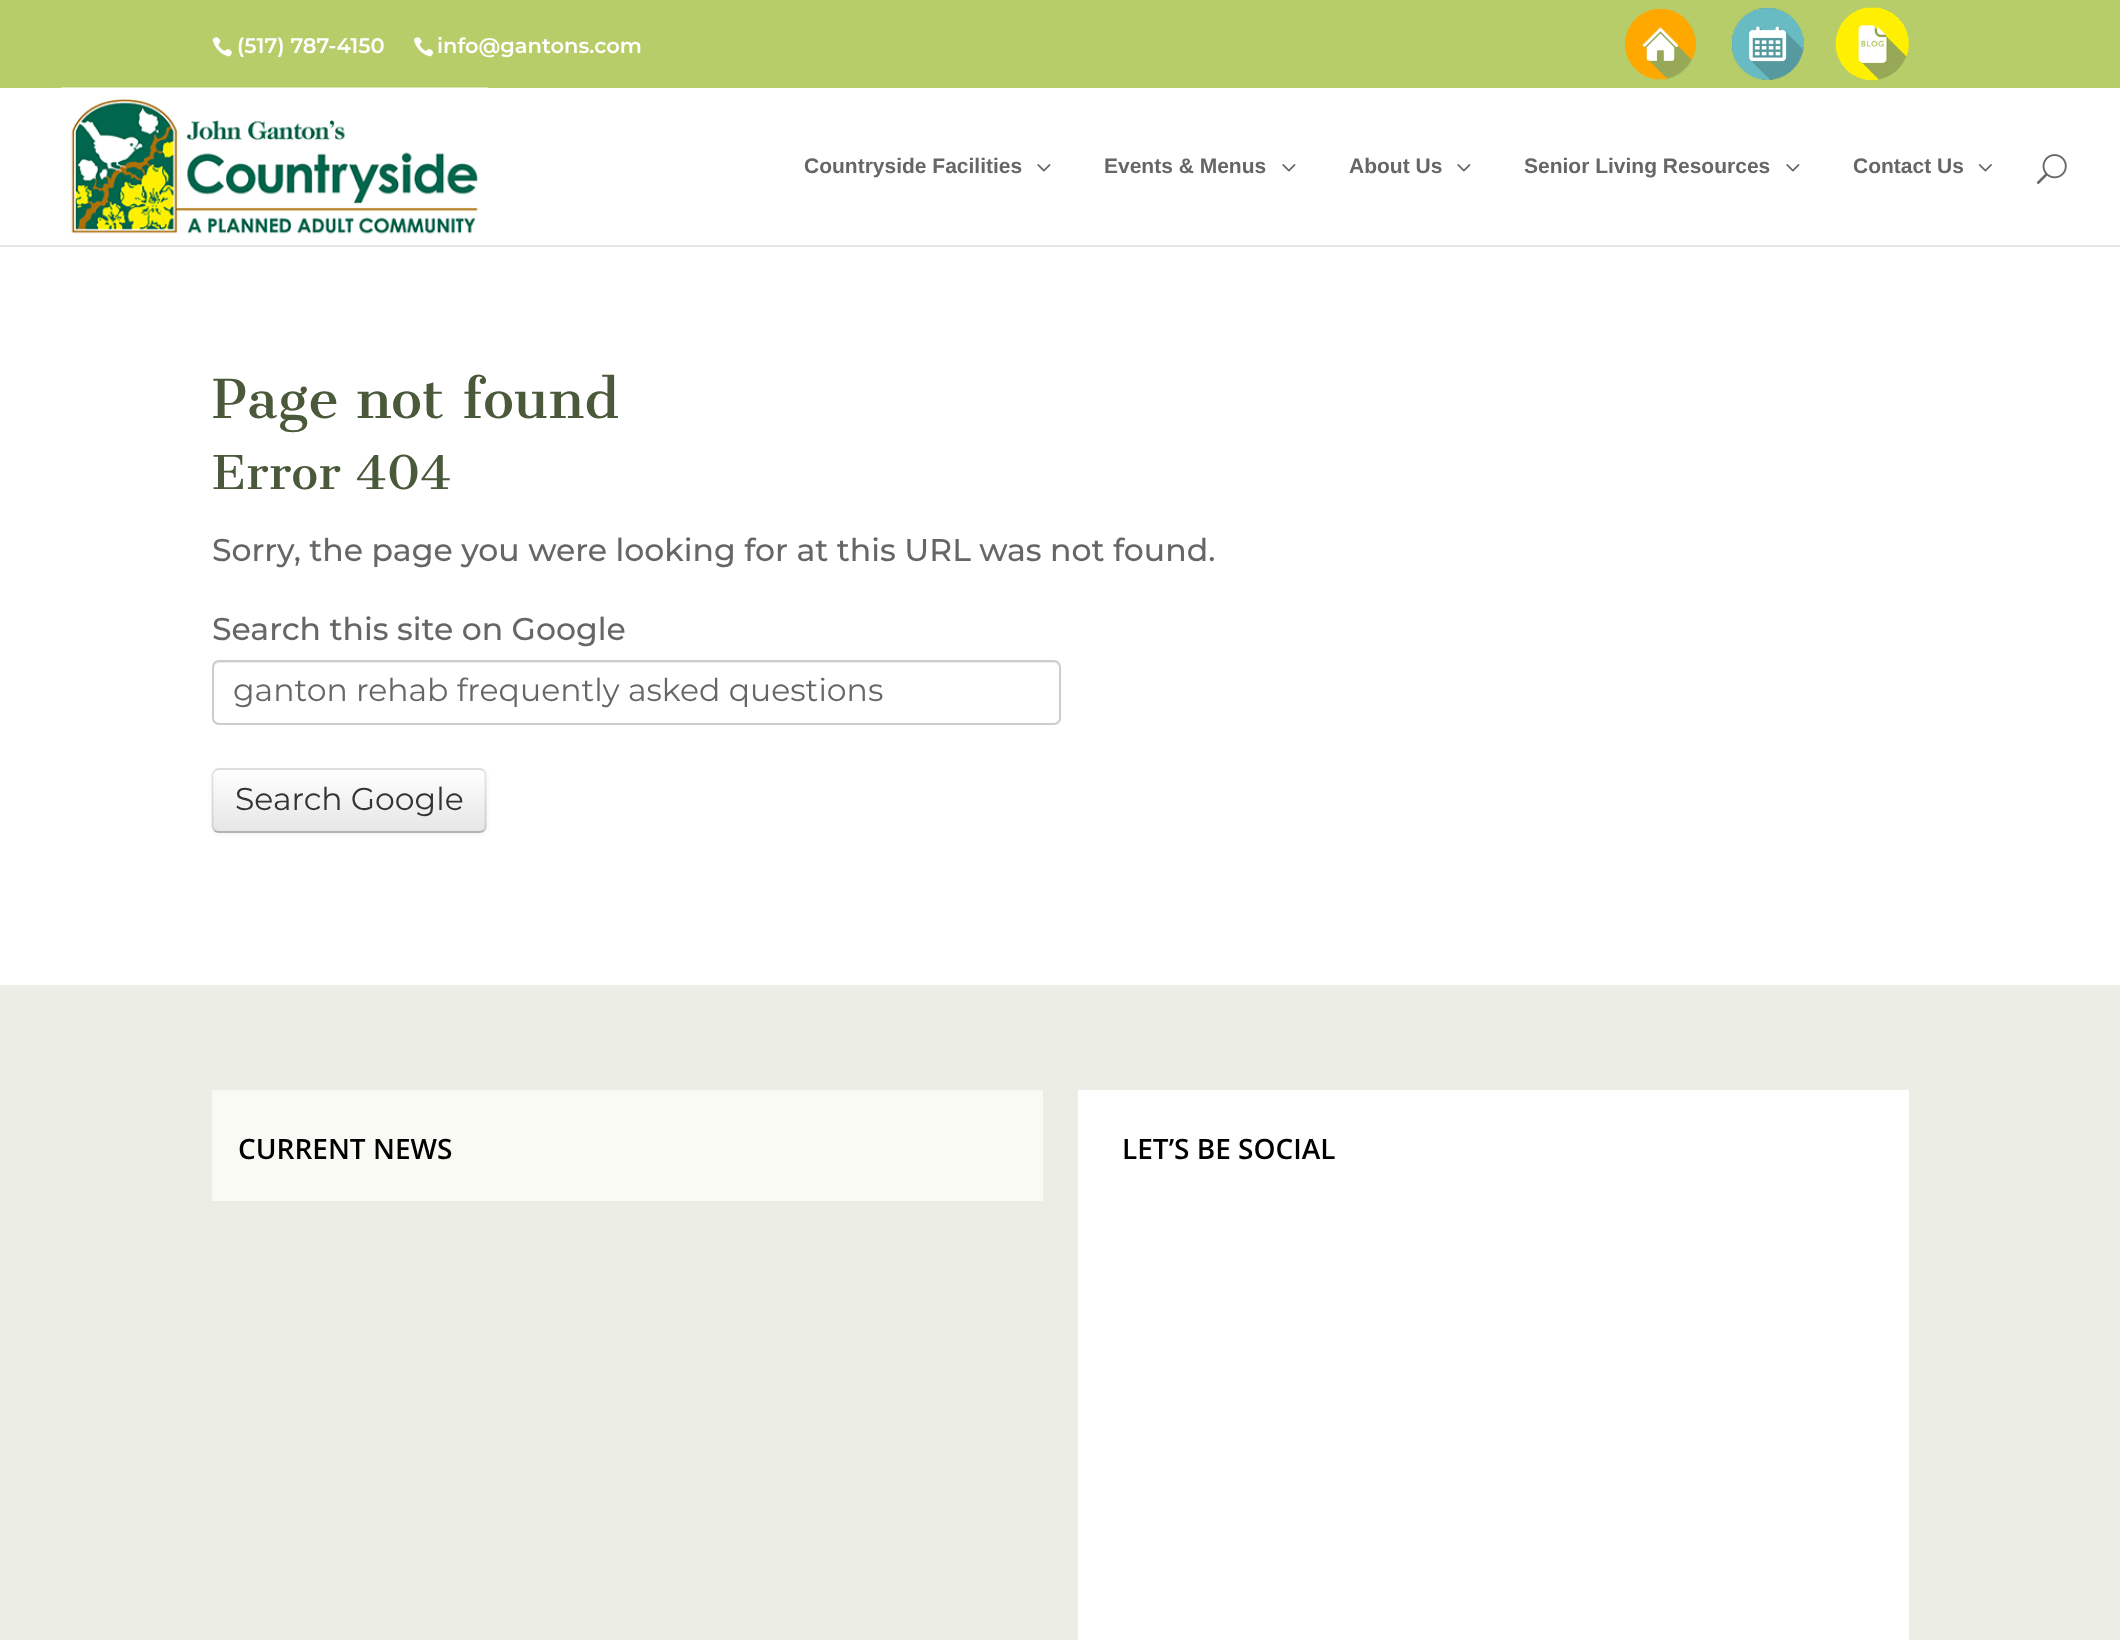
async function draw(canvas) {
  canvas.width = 2120;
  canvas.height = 1640;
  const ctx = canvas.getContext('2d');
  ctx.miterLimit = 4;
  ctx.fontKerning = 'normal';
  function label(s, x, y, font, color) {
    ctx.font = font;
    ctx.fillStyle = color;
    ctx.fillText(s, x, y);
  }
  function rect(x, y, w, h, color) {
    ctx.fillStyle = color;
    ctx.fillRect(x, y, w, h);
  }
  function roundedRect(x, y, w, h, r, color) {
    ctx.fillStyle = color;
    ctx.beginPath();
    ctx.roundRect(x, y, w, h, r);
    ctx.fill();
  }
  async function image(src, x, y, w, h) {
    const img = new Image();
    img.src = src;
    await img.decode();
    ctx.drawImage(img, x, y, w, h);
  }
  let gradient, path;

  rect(0, 0, 2120, 1640, '#fff');
  rect(0, 245, 2120, 2, '#e6e6e6');
  rect(0, 0, 2120, 88, '#b7cd6a');
  await image('assets/img1.png', 212, 37, 20, 20);
  label('(517) 787-4150', 237, 53, '600 21px Montserrat', '#fff');
  await image('assets/img2.png', 413, 37, 21, 20);
  label('info@gantons.com', 437, 53, '600 21px Montserrat', '#fff');
  await image('assets/img3.png', 1625, 9, 71, 71);
  await image('assets/img4.png', 1731, 7, 73, 73);
  await image('assets/img5.png', 1835, 7, 74, 74);
  await image('assets/img6.png', 61, 87, 428, 148);
  label('Countryside Facilities', 804, 173, 'bold 21px Arimo', '#666');
  await image('assets/img7.png', 1037, 164, 14, 8);
  label('Events & Menus', 1104, 173, 'bold 21px Arimo', '#666');
  await image('assets/img7.png', 1282, 164, 14, 8);
  label('About Us', 1349, 173, 'bold 21px Arimo', '#666');
  await image('assets/img7.png', 1457, 164, 14, 8);
  label('Senior Living Resources', 1524, 173, 'bold 21px Arimo', '#666');
  await image('assets/img7.png', 1786, 164, 14, 8);
  label('Contact Us', 1853, 173, 'bold 21px Arimo', '#666');
  await image('assets/img8.png', 1978, 164, 14, 8);
  await image('assets/img9.png', 2036, 154, 31, 30);
  label('Page not found', 212, 418, '52.5px Cantata One', '#4a593a');
  label('Error 404', 212, 489, '45.5px Cantata One', '#4a593a');
  label('Sorry, the page you were looking for at this URL was not found.', 212, 561, '500 31.5px Montserrat', '#666');
  label('Search this site on Google', 212, 640, '500 31.5px Montserrat', '#666');
  ctx.fillStyle = '#ececec';
  path = new Path2D('M219 663H1054C1056 663 1059 666 1059 668C1059 665 1057 662 1054 662H219C217 662 215 663 214 665V668C214 666 216 663 219 663Z');
  ctx.fill(path);
  ctx.beginPath();
  ctx.roundRect(213, 661, 847, 63, 6);
  ctx.strokeStyle = '#ccc';
  ctx.lineWidth = 2;
  ctx.stroke();
  label('ganton rehab frequently asked questions', 233, 701, '31.5px Montserrat', '#666');
  ctx.fillStyle = '#0000000d';
  ctx.filter = 'blur(2px)';
  ctx.beginPath();
  ctx.roundRect(212, 770, 275, 65, 7);
  ctx.fill();
  ctx.filter = 'none';
  roundedRect(212, 768, 275, 65, 7, '#f5f5f5');
  ctx.save();
  ctx.beginPath();
  ctx.roundRect(212, 768, 275, 65, 7);
  ctx.clip();
  gradient = ctx.createLinearGradient(349, 770, 349, 831);
  gradient.addColorStop(0, '#fff');
  gradient.addColorStop(1, '#e6e6e6');
  ctx.fillStyle = gradient;
  ctx.fillRect(212, 770, 275, 61);
  ctx.restore();
  path = new Path2D('M484 830.5C482.5 831.5 481 832 479.5 832H219C217 832 215.5 831.5 214.5 830.5');
  ctx.strokeStyle = '#b3b3b3';
  ctx.lineWidth = 1.8;
  ctx.stroke(path);
  path = new Path2D('M214.5 830.5C213.5 829 212.5 827.5 212.5 826V775C212.5 773.5 213.5 772 214.5 771C215.5 770 217 769 219 769H479.5C481 769 482.5 770 484 771C485 772 485.5 773.5 485.5 775V826C485.5 827.5 485 829 484 830.5');
  ctx.strokeStyle = '#0000001a';
  ctx.stroke(path);
  label('Search Google', 235, 810, '31.5px Montserrat', '#333');
  rect(0, 985, 2120, 655, '#ecede5');
  rect(212, 1090, 831, 111, '#fafaf4');
  label('CURRENT NEWS', 238, 1159, '600 28px Open Sans', '#000');
  rect(1078, 1090, 831, 550, '#fff');
  label('LET’S BE SOCIAL', 1122, 1159, '600 28px Open Sans', '#000');
}

draw(document.querySelector('canvas'));
